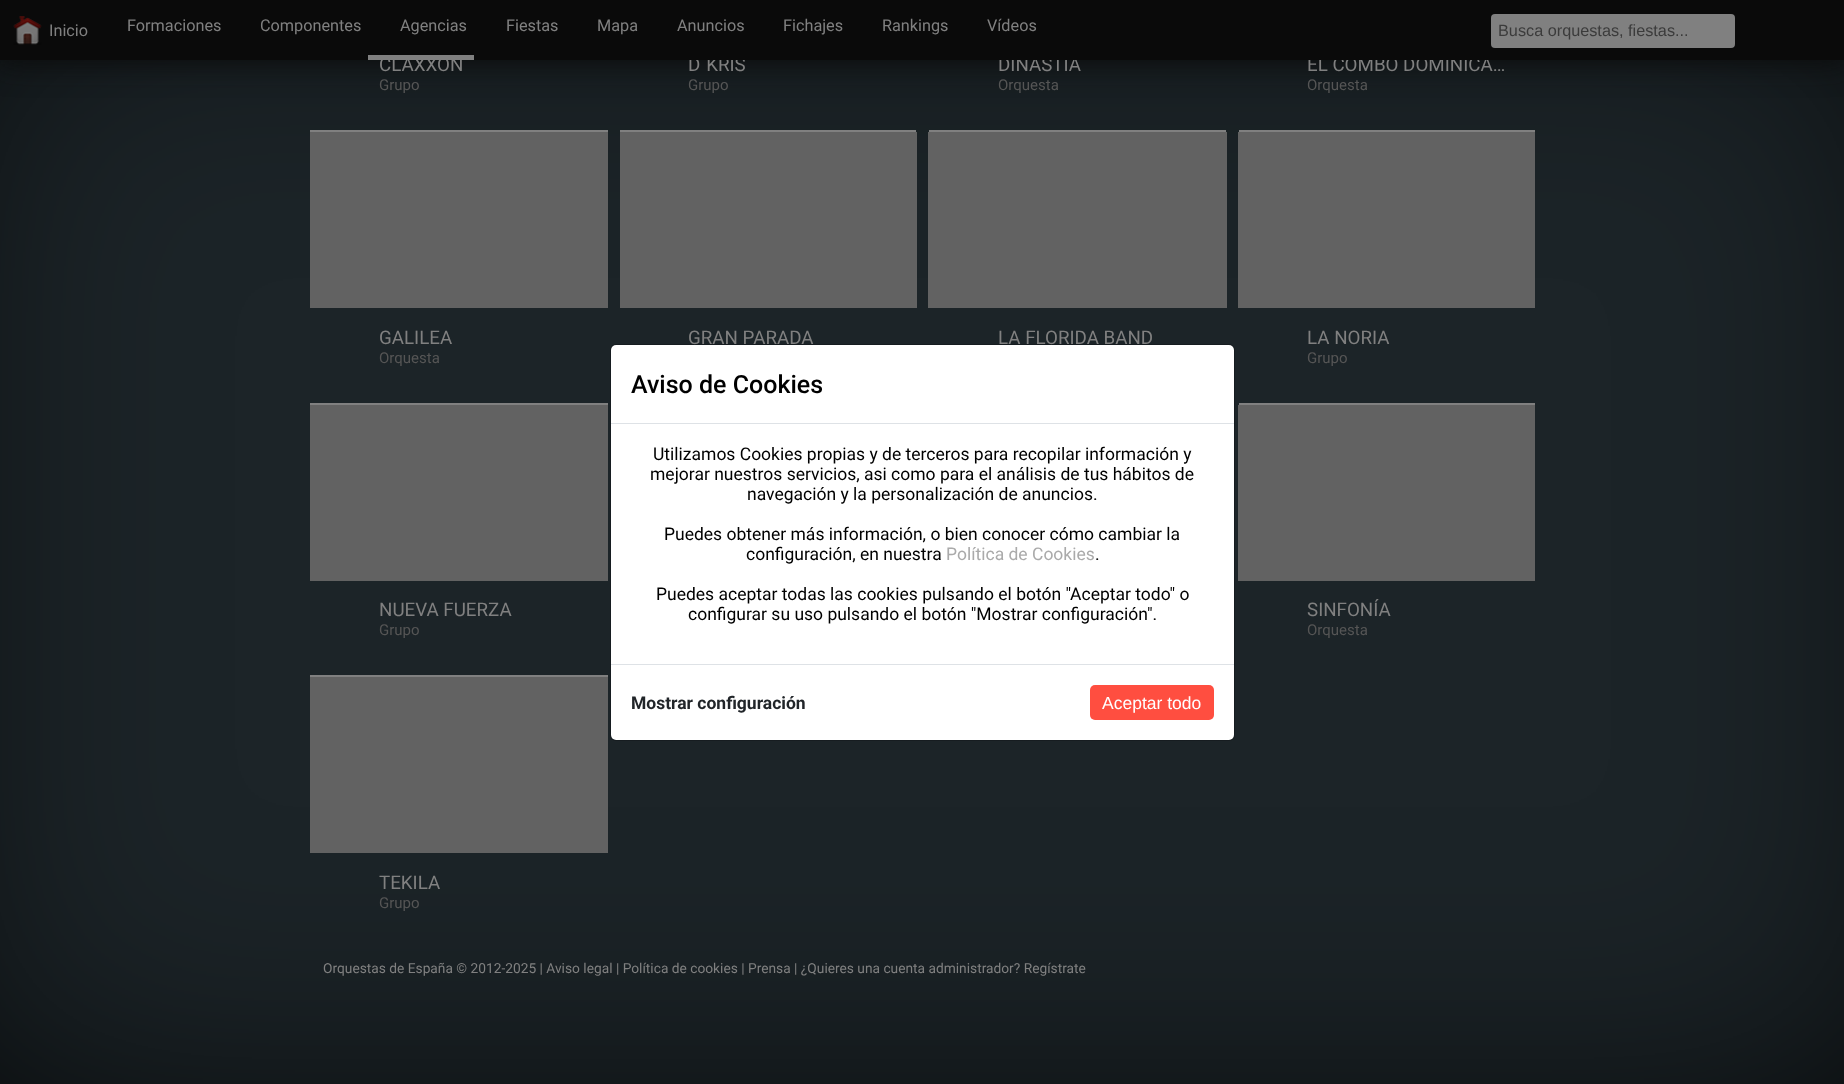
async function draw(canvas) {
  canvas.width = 1844;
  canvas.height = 1084;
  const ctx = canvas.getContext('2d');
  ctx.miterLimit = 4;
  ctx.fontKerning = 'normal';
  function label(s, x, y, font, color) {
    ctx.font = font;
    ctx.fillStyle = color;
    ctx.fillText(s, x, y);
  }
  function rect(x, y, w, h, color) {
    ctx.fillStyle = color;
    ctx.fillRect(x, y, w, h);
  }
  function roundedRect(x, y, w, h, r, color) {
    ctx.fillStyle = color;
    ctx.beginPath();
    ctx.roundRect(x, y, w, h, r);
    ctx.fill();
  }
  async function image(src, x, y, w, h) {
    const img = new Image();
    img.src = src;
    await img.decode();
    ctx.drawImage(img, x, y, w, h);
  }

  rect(0, 0, 1844, 1084, '#1c2428');
  await image('assets/img2.png', 0, 60, 1844, 1024);
  ctx.fillStyle = '#0a0a0a';
  ctx.filter = 'blur(15.5px)';
  ctx.beginPath();
  ctx.rect(-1, -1, 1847, 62);
  ctx.fill();
  ctx.filter = 'none';
  label('CLAXXON', 379, 71, '18.75px Roboto', '#808080');
  label('D´KRIS', 688, 71, '18.75px Roboto', '#808080');
  label('DINASTÍA', 998, 71, '18.75px Roboto', '#808080');
  label('EL COMBO DOMINICA…', 1307, 71, '18.75px Roboto', '#808080');
  rect(0, 0, 1844, 60, '#0a0a0a');
  await image('assets/img1.png', 13, 16, 29, 29);
  label('Inicio', 49, 36, '16.25px Roboto', '#808080');
  label('Formaciones', 127, 31, '16.25px Roboto', '#808080');
  label('Componentes', 260, 31, '16.25px Roboto', '#808080');
  rect(368, 55, 106, 5, '#808080');
  label('Agencias', 400, 31, '16.25px Roboto', '#808080');
  label('Fiestas', 506, 31, '16.25px Roboto', '#808080');
  label('Mapa', 597, 31, '16.25px Roboto', '#808080');
  label('Anuncios', 677, 31, '16.25px Roboto', '#808080');
  label('Fichajes', 783, 31, '16.25px Roboto', '#808080');
  label('Rankings', 882, 31, '16.25px Roboto', '#808080');
  label('Vídeos', 987, 31, '16.25px Roboto', '#808080');
  roundedRect(1491, 14, 244, 34, 4, '#808080');
  label('Busca orquestas, fiestas...', 1498, 36, '16.25px Liberation Sans', '#3b3b3b');
  label('Grupo', 379, 90, '15px Roboto', '#555');
  label('Grupo', 688, 90, '15px Roboto', '#555');
  label('Orquesta', 998, 90, '15px Roboto', '#555');
  label('Orquesta', 1307, 90, '15px Roboto', '#555');
  rect(310, 130, 298, 2, '#808080');
  rect(310, 132, 298, 176, '#626262');
  label('GALILEA', 379, 344, '18.75px Roboto', '#808080');
  label('Orquesta', 379, 363, '15px Roboto', '#555');
  rect(620, 130, 296, 2, '#808080');
  rect(620, 132, 297, 176, '#626262');
  label('GRAN PARADA', 688, 344, '18.75px Roboto', '#808080');
  rect(929, 130, 297, 2, '#808080');
  rect(928, 132, 299, 176, '#626262');
  label('LA FLORIDA BAND', 998, 344, '18.75px Roboto', '#808080');
  rect(1239, 130, 296, 2, '#808080');
  rect(1238, 132, 297, 176, '#626262');
  label('LA NORIA', 1307, 344, '18.75px Roboto', '#808080');
  label('Grupo', 1307, 363, '15px Roboto', '#555');
  rect(310, 403, 298, 2, '#808080');
  rect(310, 405, 298, 176, '#626262');
  label('NUEVA FUERZA', 379, 616, '18.75px Roboto', '#808080');
  label('Grupo', 379, 635, '15px Roboto', '#555');
  rect(1239, 403, 296, 2, '#808080');
  rect(1238, 405, 297, 176, '#626262');
  label('SINFONÍA', 1307, 616, '18.75px Roboto', '#808080');
  label('Orquesta', 1307, 635, '15px Roboto', '#555');
  rect(310, 675, 298, 2, '#808080');
  rect(310, 677, 298, 176, '#626262');
  label('TEKILA', 379, 889, '18.75px Roboto', '#808080');
  label('Grupo', 379, 908, '15px Roboto', '#555');
  label('Orquestas de España © 2012-2025 | Aviso legal | Política de cookies | Prensa | ¿Quieres una cuenta administrador? Regístrate', 323, 973, '13.75px Roboto', '#808080');
  roundedRect(611, 345, 623, 395, 5, '#fff');
  ctx.beginPath();
  ctx.roundRect(610.5, 344.5, 624, 396, 5.5);
  ctx.strokeStyle = '#00000033';
  ctx.stroke();
  rect(611, 423, 623, 1, '#dee2e6');
  label('Aviso de Cookies', 631, 393, '500 25px Roboto', '#000');
  label('Utilizamos Cookies propias y de terceros para recopilar información y', 653, 460, '17.5px Roboto', '#000');
  label('mejorar nuestros servicios, asi como para el análisis de tus hábitos de', 650, 480, '17.5px Roboto', '#000');
  label('navegación y la personalización de anuncios.', 747, 500, '17.5px Roboto', '#000');
  label('Puedes obtener más información, o bien conocer cómo cambiar la', 664, 540, '17.5px Roboto', '#000');
  label('configuración, en nuestra', 746, 560, '17.5px Roboto', '#000');
  label('Política de Cookies', 946, 560, '17.5px Roboto', '#aaa');
  label('.', 1095, 560, '17.5px Roboto', '#000');
  label('Puedes aceptar todas las cookies pulsando el botón "Aceptar todo" o', 656, 600, '17.5px Roboto', '#000');
  label('configurar su uso pulsando el botón "Mostrar configuración".', 688, 620, '17.5px Roboto', '#000');
  rect(611, 664, 623, 1, '#dee2e6');
  label('Mostrar configuración', 631, 709, 'bold 17.5px Roboto', '#212529');
  roundedRect(1090, 685, 124, 35, 5, '#ff4e40');
  label('Aceptar todo', 1102, 709, '17.5px Liberation Sans', '#fff');
}

draw(document.querySelector('canvas'));
